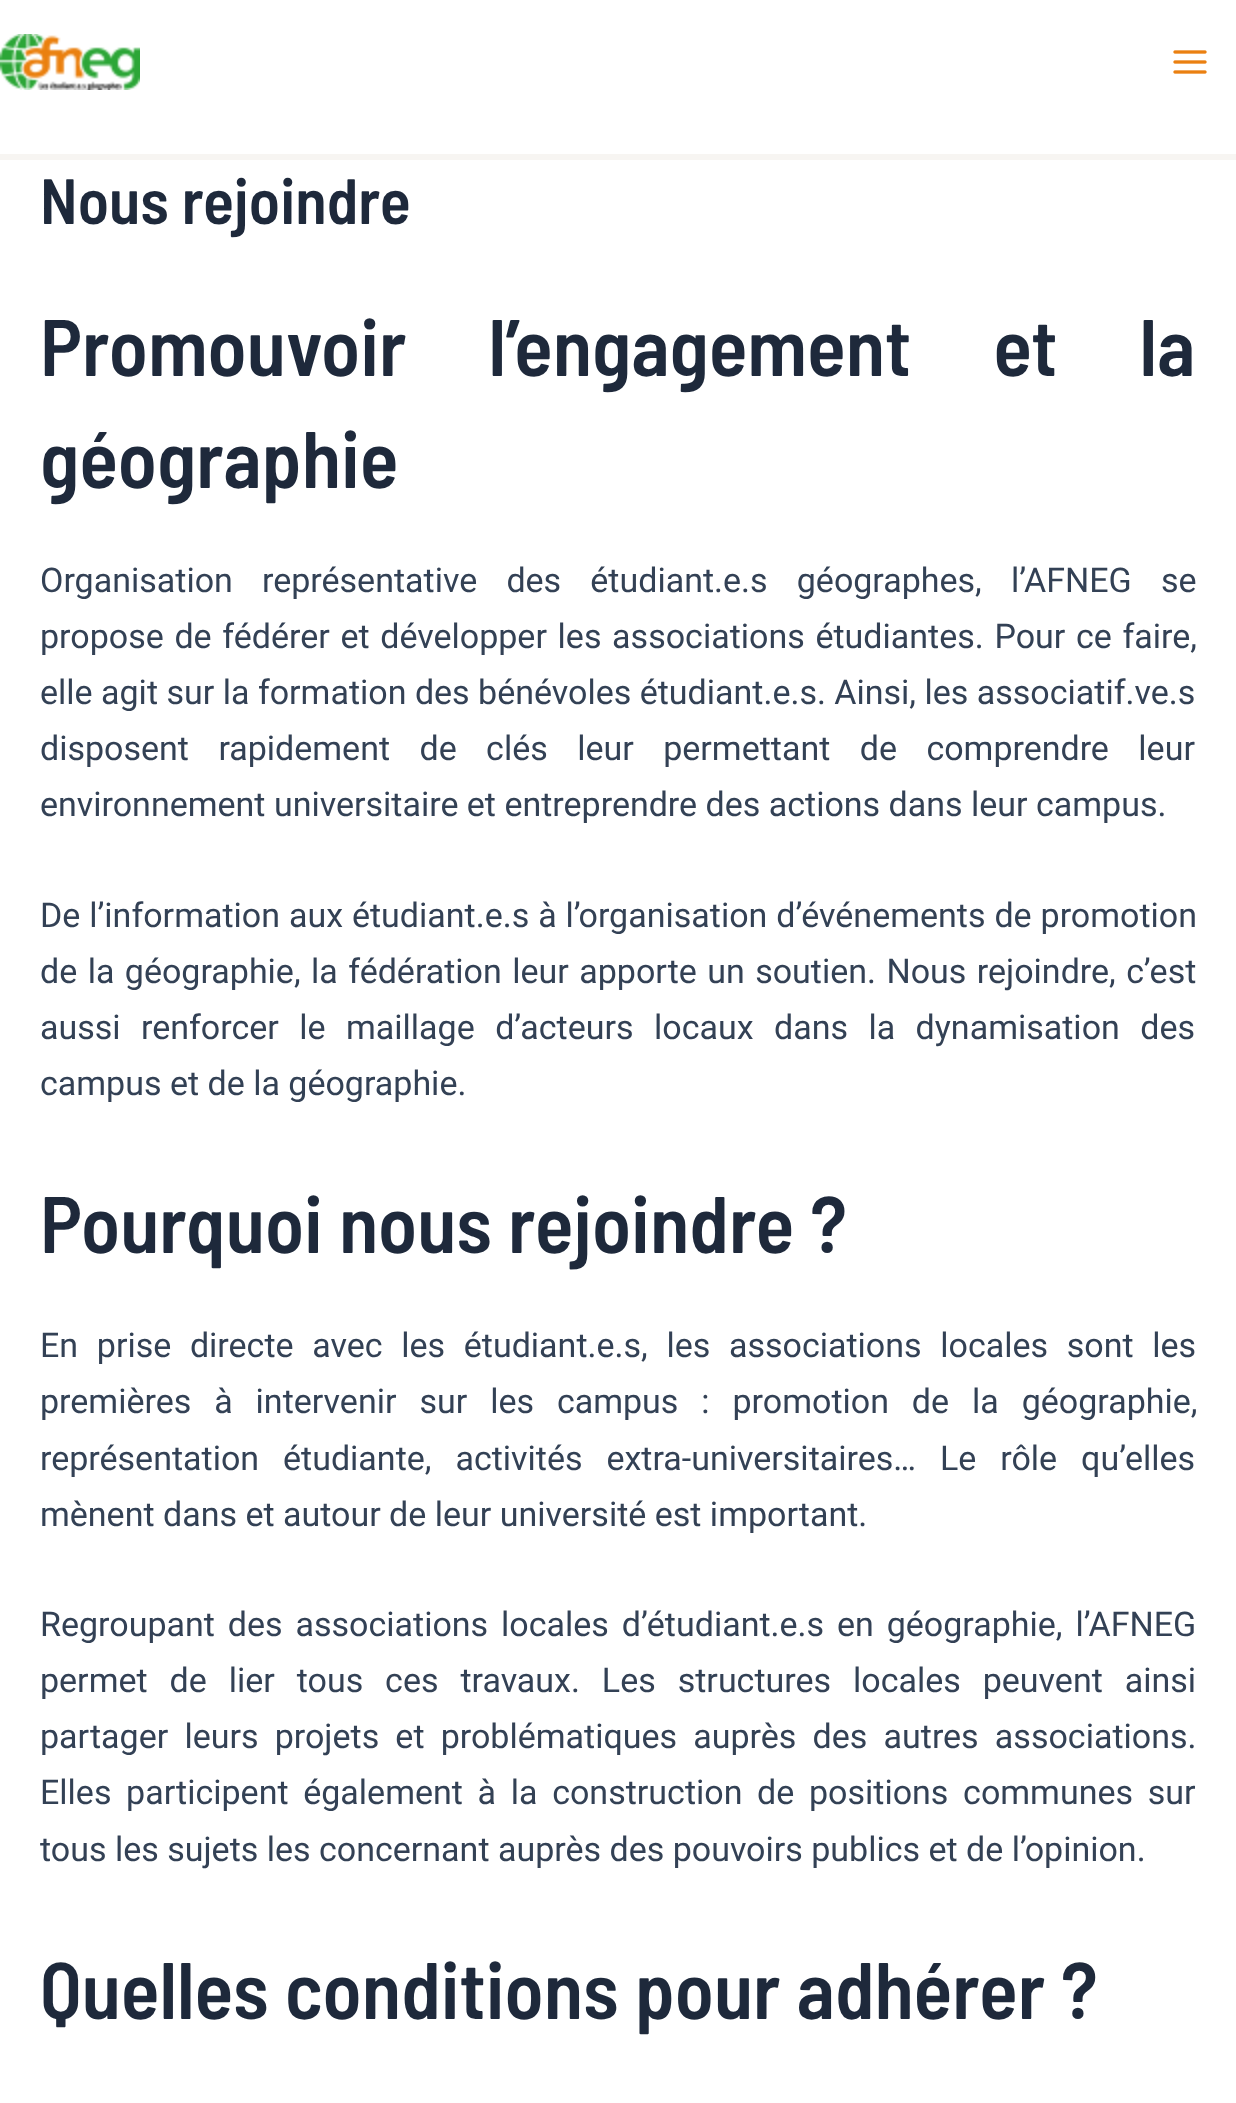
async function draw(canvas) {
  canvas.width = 1236;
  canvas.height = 2103;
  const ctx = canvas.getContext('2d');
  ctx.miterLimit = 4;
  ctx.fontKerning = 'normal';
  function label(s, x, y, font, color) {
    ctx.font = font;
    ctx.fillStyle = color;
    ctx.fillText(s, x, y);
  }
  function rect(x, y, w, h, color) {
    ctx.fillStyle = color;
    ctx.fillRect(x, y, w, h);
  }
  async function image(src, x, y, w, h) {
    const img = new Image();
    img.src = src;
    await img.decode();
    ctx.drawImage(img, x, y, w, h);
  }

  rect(0, 0, 1236, 2103, '#fff');
  rect(0, 154, 1236, 6, '#f7f5f2');
  await image('assets/img1.png', 0, 34, 140, 56);
  await image('assets/img2.png', 1173, 50, 34, 24);
  label('Nous rejoindre', 40, 224, '600 64px Barlow Semi Condensed', '#1e293b');
  ctx.wordSpacing = '66px';
  label('Promouvoir l’engagement et la', 40, 376, '600 80px Barlow Semi Condensed', '#1e293b');
  ctx.wordSpacing = '0px';
  label('géographie', 40, 488, '600 80px Barlow Semi Condensed', '#1e293b');
  ctx.wordSpacing = '20.75px';
  label('Organisation représentative des étudiant.e.s géographes, l’AFNEG se', 40, 592, '34px Roboto', '#334155');
  ctx.wordSpacing = '2.25px';
  label('propose de fédérer et développer les associations étudiantes. Pour ce faire,', 40, 648, '34px Roboto', '#334155');
  ctx.wordSpacing = '0px';
  label('elle agit sur la formation des bénévoles étudiant.e.s. Ainsi, les associatif.ve.s', 40, 704, '34px Roboto', '#334155');
  ctx.wordSpacing = '21px';
  label('disposent rapidement de clés leur permettant de comprendre leur', 40, 760, '34px Roboto', '#334155');
  ctx.wordSpacing = '0px';
  label('environnement universitaire et entreprendre des actions dans leur campus.', 40, 816, '34px Roboto', '#334155');
  ctx.wordSpacing = '0.5px';
  label('De l’information aux étudiant.e.s à l’organisation d’événements de promotion', 40, 927, '34px Roboto', '#334155');
  ctx.wordSpacing = '2px';
  label('de la géographie, la fédération leur apporte un soutien. Nous rejoindre, c’est', 40, 983, '34px Roboto', '#334155');
  ctx.wordSpacing = '12px';
  label('aussi renforcer le maillage d’acteurs locaux dans la dynamisation des', 40, 1039, '34px Roboto', '#334155');
  ctx.wordSpacing = '0px';
  label('campus et de la géographie.', 40, 1095, '34px Roboto', '#334155');
  label('Pourquoi nous rejoindre ?', 40, 1253, '600 80px Barlow Semi Condensed', '#1e293b');
  ctx.wordSpacing = '10.25px';
  label('En prise directe avec les étudiant.e.s, les associations locales sont les', 40, 1357, '34px Roboto', '#334155');
  ctx.wordSpacing = '14.5px';
  label('premières à intervenir sur les campus : promotion de la géographie,', 40, 1413, '34px Roboto', '#334155');
  ctx.wordSpacing = '15.5px';
  label('représentation étudiante, activités extra-universitaires… Le rôle qu’elles', 40, 1470, '34px Roboto', '#334155');
  ctx.wordSpacing = '0px';
  label('mènent dans et autour de leur université est important.', 40, 1526, '34px Roboto', '#334155');
  ctx.wordSpacing = '4.5px';
  label('Regroupant des associations locales d’étudiant.e.s en géographie, l’AFNEG', 40, 1636, '34px Roboto', '#334155');
  ctx.wordSpacing = '13.5px';
  label('permet de lier tous ces travaux. Les structures locales peuvent ainsi', 40, 1692, '34px Roboto', '#334155');
  ctx.wordSpacing = '7.75px';
  label('partager leurs projets et problématiques auprès des autres associations.', 40, 1748, '34px Roboto', '#334155');
  ctx.wordSpacing = '6.25px';
  label('Elles participent également à la construction de positions communes sur', 40, 1804, '34px Roboto', '#334155');
  ctx.wordSpacing = '0px';
  label('tous les sujets les concernant auprès des pouvoirs publics et de l’opinion.', 40, 1861, '34px Roboto', '#334155');
  label('Quelles conditions pour adhérer ?', 40, 2019, '600 80px Barlow Semi Condensed', '#1e293b');
}

draw(document.querySelector('canvas'));
